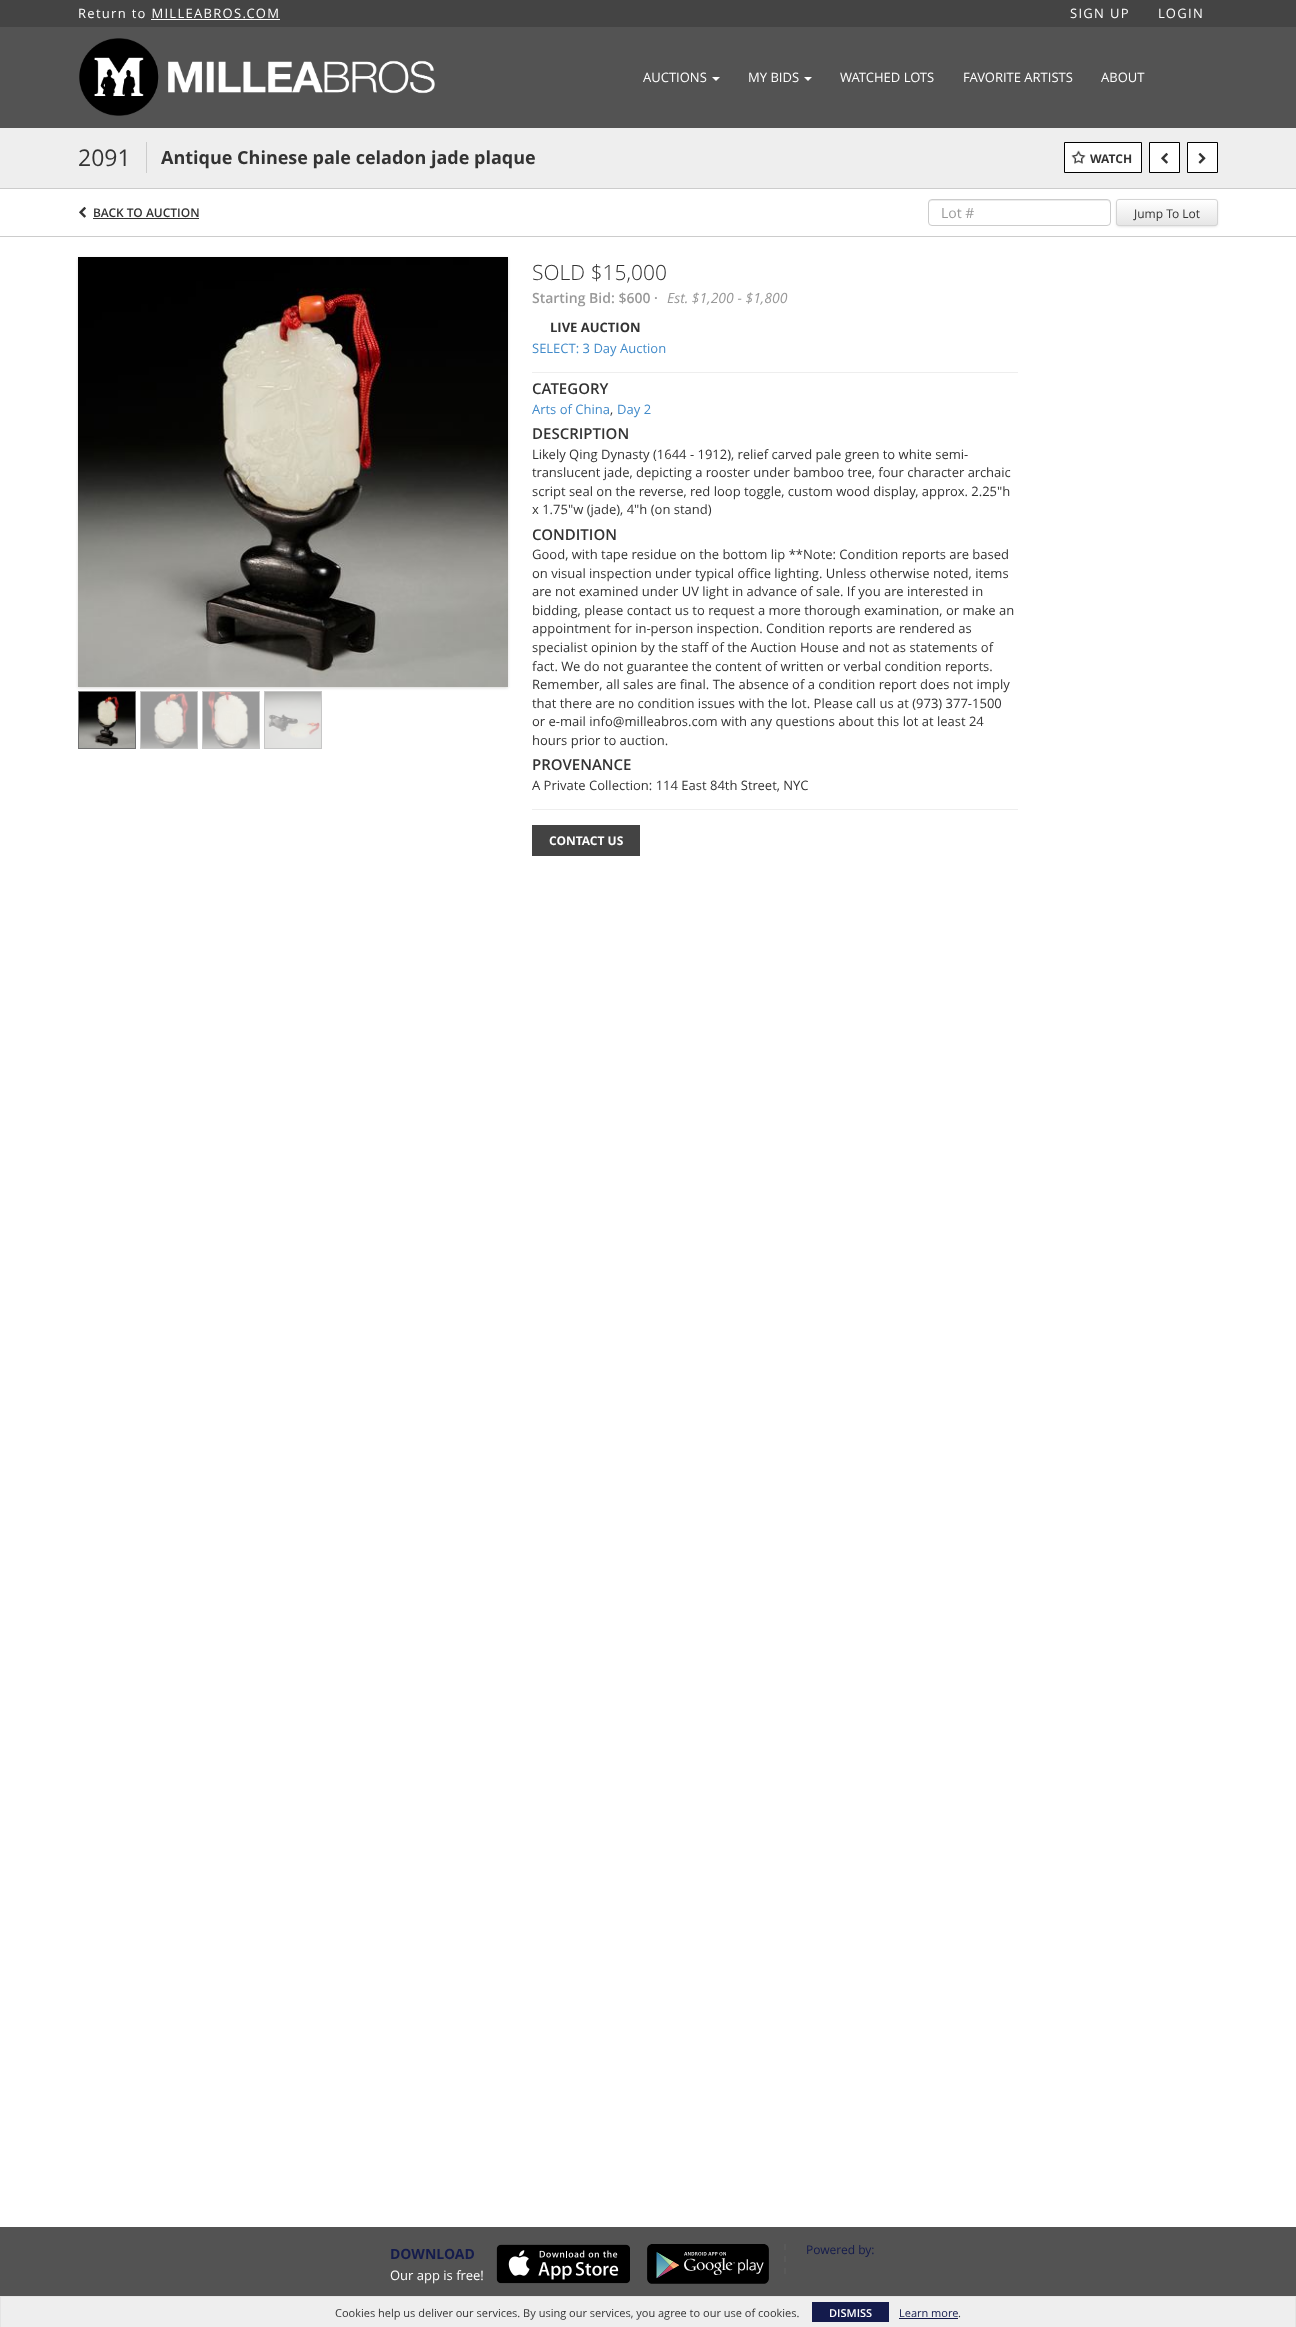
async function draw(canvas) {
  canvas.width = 1296;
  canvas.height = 2327;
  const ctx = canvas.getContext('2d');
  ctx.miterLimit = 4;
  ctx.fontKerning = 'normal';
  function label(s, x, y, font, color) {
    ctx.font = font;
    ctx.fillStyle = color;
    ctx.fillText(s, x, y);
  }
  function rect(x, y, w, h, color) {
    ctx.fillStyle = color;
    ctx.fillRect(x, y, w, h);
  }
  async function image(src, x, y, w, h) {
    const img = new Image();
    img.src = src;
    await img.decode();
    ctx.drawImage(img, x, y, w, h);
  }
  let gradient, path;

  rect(0, 0, 1296, 2327, '#fff');
  rect(0, 0, 1296, 27, '#444');
  ctx.letterSpacing = '1.3px';
  label('Return to MILLEABROS.COM', 78, 18, '13px Open Sans', '#fff');
  rect(151, 19, 129, 1, '#fff');
  label('SIGN UP', 1070, 18, '13px Open Sans', '#fff');
  label('LOGIN', 1158, 18, '13px Open Sans', '#fff');
  rect(0, 27, 1296, 101, '#535353');
  await image('assets/img1.png', 79, 38, 356, 78);
  ctx.letterSpacing = '0px';
  label('AUCTIONS', 643, 82, '13px Open Sans', '#fff');
  path = new Path2D('M712 77H720L716 81Z');
  ctx.fill(path);
  label('MY BIDS', 748, 82, '13px Open Sans', '#fff');
  path = new Path2D('M804 77H812L808 81Z');
  ctx.fill(path);
  label('WATCHED LOTS', 840, 82, '13px Open Sans', '#fff');
  label('FAVORITE ARTISTS', 963, 82, '13px Open Sans', '#fff');
  label('ABOUT', 1101, 82, '13px Open Sans', '#fff');
  rect(0, 128, 1296, 60, '#eee');
  rect(0, 188, 1296, 1, '#ccc');
  label('2091', 78, 166, '23px Open Sans', '#333');
  rect(146, 142, 1, 31, '#ccc');
  label('Antique Chinese pale celadon jade plaque', 161, 164, 'bold 18px Open Sans', '#333');
  ctx.fillStyle = '#fff';
  ctx.beginPath();
  ctx.rect(1064.5, 142.5, 77, 30);
  ctx.fill();
  ctx.strokeStyle = '#000';
  ctx.stroke();
  await image('assets/img2.png', 1071, 150, 15, 14);
  label('WATCH', 1090, 163, 'bold 12px Open Sans', '#333');
  ctx.fillStyle = '#fff';
  ctx.beginPath();
  ctx.rect(1149.5, 142.5, 30, 30);
  ctx.fill();
  ctx.stroke();
  await image('assets/img3.png', 1161, 152, 7, 12);
  ctx.beginPath();
  ctx.rect(1187.5, 142.5, 30, 30);
  ctx.fill();
  ctx.stroke();
  await image('assets/img4.png', 1198, 152, 8, 12);
  await image('assets/img3.png', 79, 206, 7, 12);
  label('BACK TO AUCTION', 93, 217, '600 12px Open Sans', '#333');
  rect(93, 218, 106, 1, '#333');
  ctx.fillStyle = '#ececec';
  path = new Path2D('M932 201H1108L1109 202L1110 204V203C1110 201 1109 200 1107 200H932C930 200 929 201 929 203V204C929 202 930 201 932 201Z');
  ctx.fill(path);
  ctx.beginPath();
  ctx.roundRect(928.5, 199.5, 182, 26, 3.5);
  ctx.strokeStyle = '#ccc';
  ctx.stroke();
  label('Lot #', 941, 218, '14px Open Sans', '#999');
  ctx.fillStyle = '#00000033';
  ctx.filter = 'blur(1.5px)';
  ctx.beginPath();
  ctx.roundRect(1117, 201, 100, 25, 2);
  ctx.fill();
  ctx.filter = 'none';
  ctx.save();
  ctx.beginPath();
  ctx.roundRect(1116, 199, 102, 27, 3);
  ctx.clip();
  gradient = ctx.createLinearGradient(1167, 200, 1167, 225);
  gradient.addColorStop(0, '#fff');
  gradient.addColorStop(1, '#e6e6e6');
  ctx.fillStyle = gradient;
  ctx.fillRect(1116, 200, 102, 25);
  ctx.restore();
  ctx.fillStyle = '#ffffff66';
  path = new Path2D('M1119 201H1215C1216 201 1217 202 1217 203C1217 202 1217 200 1215 200H1135C1134 200 1117 196 1117 203C1117 202 1118 201 1119 201Z');
  ctx.fill(path);
  ctx.beginPath();
  ctx.roundRect(1116.5, 199.5, 101, 26, 2.5);
  ctx.strokeStyle = '#d4d4d4';
  ctx.stroke();
  label('Jump To Lot', 1134, 218, '12px Open Sans', '#333');
  rect(0, 236, 1296, 1, '#ccc');
  ctx.fillStyle = '#dad9d7';
  ctx.filter = 'blur(1.5px)';
  ctx.beginPath();
  ctx.rect(78, 258, 430, 430);
  ctx.fill();
  ctx.filter = 'none';
  await image('assets/img5.png', 78, 257, 430, 430);
  ctx.strokeStyle = '#717171';
  ctx.strokeRect(78.5, 691.5, 57, 57);
  ctx.strokeStyle = '#c6c6c6';
  ctx.strokeRect(140.5, 691.5, 57, 57);
  ctx.strokeRect(202.5, 691.5, 57, 57);
  ctx.strokeRect(264.5, 691.5, 57, 57);
  await image('assets/img6.png', 79, 692, 56, 56);
  await image('assets/img7.png', 141, 692, 56, 56);
  await image('assets/img8.png', 203, 692, 56, 56);
  await image('assets/img9.png', 265, 692, 56, 56);
  label('SOLD $15,000', 532, 280, '300 21px Open Sans', '#333');
  label('Starting Bid: $600 ·', 532, 303, '600 14px Open Sans', '#999');
  label('Est. $1,200 - $1,800', 667, 303, 'italic 14px Open Sans', '#999');
  label('LIVE AUCTION', 550, 332, 'bold 13px Open Sans', '#333');
  label('SELECT: 3 Day Auction', 532, 353, '13px Open Sans', '#428bca');
  rect(532, 372, 486, 1, '#eee');
  label('CATEGORY', 532, 394, '600 15px Open Sans', '#333');
  label('Arts of China', 532, 414, '13px Open Sans', '#428bca');
  label(',', 610, 414, '13px Open Sans', '#333');
  label('Day 2', 617, 414, '13px Open Sans', '#428bca');
  label('DESCRIPTION', 532, 439, '600 15px Open Sans', '#333');
  label('Likely Qing Dynasty (1644 - 1912), relief carved pale green to white semi-', 532, 459, '13px Open Sans', '#333');
  label('translucent jade, depicting a rooster under bamboo tree, four character archaic', 532, 477, '13px Open Sans', '#333');
  label('script seal on the reverse, red loop toggle, custom wood display, approx. 2.25"h', 532, 496, '13px Open Sans', '#333');
  label('x 1.75"w (jade), 4"h (on stand)', 532, 514, '13px Open Sans', '#333');
  label('CONDITION', 532, 540, '600 15px Open Sans', '#333');
  label('Good, with tape residue on the bottom lip **Note: Condition reports are based', 532, 559, '13px Open Sans', '#333');
  label('on visual inspection under typical office lighting. Unless otherwise noted, items', 532, 578, '13px Open Sans', '#333');
  label('are not examined under UV light in advance of sale. If you are interested in', 532, 596, '13px Open Sans', '#333');
  label('bidding, please contact us to request a more thorough examination, or make an', 532, 615, '13px Open Sans', '#333');
  label('appointment for in-person inspection. Condition reports are rendered as', 532, 633, '13px Open Sans', '#333');
  label('specialist opinion by the staff of the Auction House and not as statements of', 532, 652, '13px Open Sans', '#333');
  label('fact. We do not guarantee the content of written or verbal condition reports.', 532, 671, '13px Open Sans', '#333');
  label('Remember, all sales are final. The absence of a condition report does not imply', 532, 689, '13px Open Sans', '#333');
  label('that there are no condition issues with the lot. Please call us at (973) 377-1500', 532, 708, '13px Open Sans', '#333');
  label('or e-mail info@milleabros.com with any questions about this lot at least 24', 532, 726, '13px Open Sans', '#333');
  label('hours prior to auction.', 532, 745, '13px Open Sans', '#333');
  label('PROVENANCE', 532, 770, '600 15px Open Sans', '#333');
  label('A Private Collection: 114 East 84th Street, NYC', 532, 790, '13px Open Sans', '#333');
  rect(532, 809, 486, 1, '#eee');
  rect(532, 825, 108, 31, '#434343');
  label('CONTACT US', 549, 845, 'bold 12px Open Sans', '#fff');
  rect(0, 2227, 1296, 69, '#535353');
  label('DOWNLOAD', 390, 2259, 'bold 14px Open Sans', '#141b4c');
  label('Our app is free!', 390, 2280, '13px Open Sans', '#fff');
  await image('assets/img10.png', 496, 2244, 134, 40);
  await image('assets/img11.png', 647, 2244, 122, 40);
  path = new Path2D('M785 2244V2250M785 2256V2262M785 2268V2274');
  ctx.strokeStyle = '#595959';
  ctx.lineWidth = 2;
  ctx.stroke(path);
  label('Powered by:', 806, 2254, '12px Open Sans', '#141b4c');
  rect(1, 2297, 1294, 30, '#eee');
  rect(0, 2296, 1296, 1, '#e4e4e4');
  rect(1295, 2296, 1, 31, '#e4e4e4');
  rect(0, 2296, 1, 31, '#e4e4e4');
  label('Cookies help us deliver our services. By using our services, you agree to our use of cookies.', 335, 2317, '11px Open Sans', '#333');
  rect(812, 2302, 77, 20, '#141b4c');
  label('DISMISS', 829, 2317, '600 11px Open Sans', '#fff');
  label('Learn more', 899, 2317, '11px Open Sans', '#141b4c');
  rect(899, 2318, 59, 1, '#141b4c');
  label('.', 958, 2317, '11px Open Sans', '#333');
}

draw(document.querySelector('canvas'));
